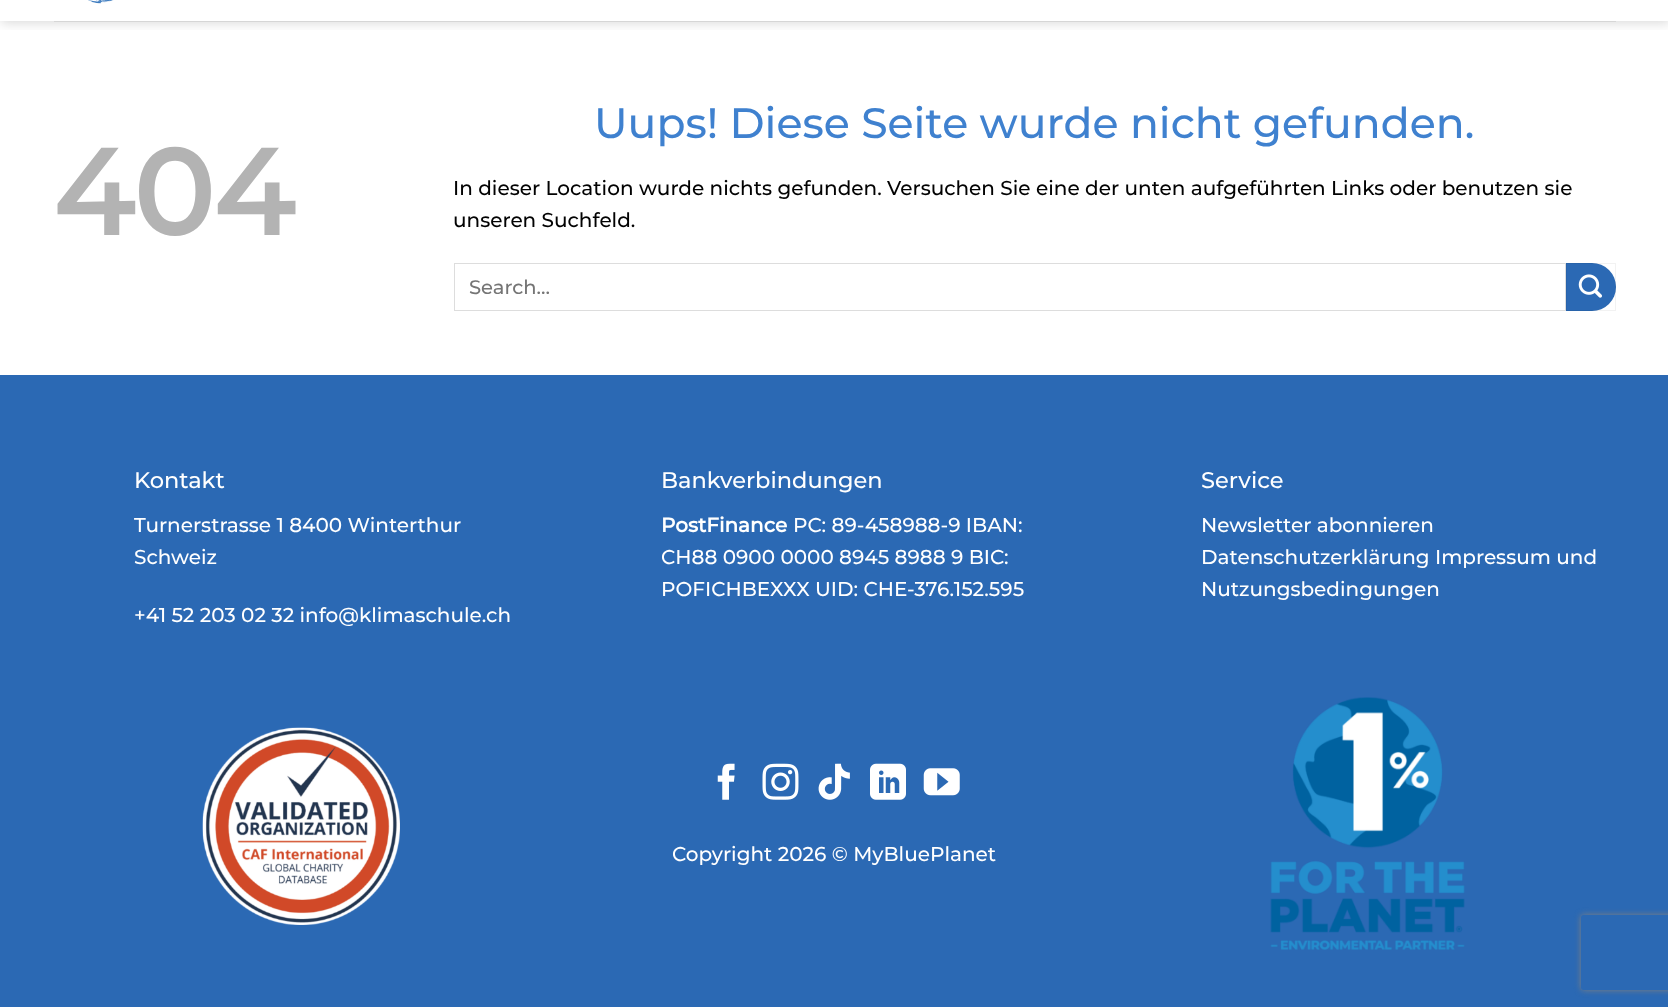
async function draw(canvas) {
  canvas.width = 1668;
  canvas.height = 1007;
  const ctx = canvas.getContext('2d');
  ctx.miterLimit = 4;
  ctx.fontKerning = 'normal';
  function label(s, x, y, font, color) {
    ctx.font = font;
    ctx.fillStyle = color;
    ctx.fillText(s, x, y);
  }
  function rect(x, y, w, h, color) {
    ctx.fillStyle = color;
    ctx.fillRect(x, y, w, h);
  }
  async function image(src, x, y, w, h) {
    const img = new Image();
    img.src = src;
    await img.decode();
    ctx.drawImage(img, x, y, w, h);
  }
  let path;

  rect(0, 0, 1668, 1007, '#fff');
  ctx.save();
  ctx.beginPath();
  ctx.rect(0, 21, 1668, 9);
  ctx.clip();
  ctx.fillStyle = '#00000026';
  ctx.filter = 'blur(6px)';
  ctx.beginPath();
  ctx.rect(1, -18, 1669, 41);
  ctx.fill();
  ctx.filter = 'none';
  ctx.restore();
  await image('assets/img1.png', 88, 0, 26, 4);
  rect(54, 21, 1562, 1, '#d6d6d6');
  label('404', 53, 235, 'bold 120px Montserrat', '#b3b3b3');
  label('Uups! Diese Seite wurde nicht gefunden.', 594, 138, '500 42.5px Montserrat', '#3f81cf');
  label('In dieser Location wurde nichts gefunden. Versuchen Sie eine der unten aufgeführten Links oder benutzen sie', 453, 195, '500 20px Montserrat', '#020202');
  label('unseren Suchfeld.', 453, 227, '500 20px Montserrat', '#020202');
  ctx.strokeStyle = '#ddd';
  ctx.strokeRect(454.5, 263.5, 1111, 47);
  label('Search…', 469, 294, '500 19.5px Montserrat', '#757575');
  ctx.fillStyle = '#2b69b4';
  ctx.beginPath();
  ctx.roundRect(1566, 263, 50, 48, [0, 24, 24, 0]);
  ctx.fill();
  ctx.strokeStyle = '#0000000d';
  ctx.strokeRect(1566.5, 263.5, 49, 47);
  await image('assets/img2.png', 1578, 274, 24, 24);
  rect(0, 375, 1668, 632, '#2b69b4');
  label('Kontakt', 134, 488, '500 22.5px Montserrat', '#fff');
  label('Turnerstrasse 1 8400 Winterthur', 134, 532, '500 20px Montserrat', '#fff');
  label('Schweiz', 134, 564, '500 20px Montserrat', '#fff');
  label('+41 52 203 02 32 info@klimaschule.ch', 134, 622, '500 20px Montserrat', '#fff');
  label('Bankverbindungen', 661, 488, '500 22.5px Montserrat', '#fff');
  label('PostFinance', 661, 532, 'bold 20px Montserrat', '#fff');
  label('PC: 89-458988-9 IBAN:', 793, 532, '500 20px Montserrat', '#fff');
  label('CH88 0900 0000 8945 8988 9 BIC:', 661, 564, '500 20px Montserrat', '#fff');
  label('POFICHBEXXX UID: CHE-376.152.595', 661, 596, '500 20px Montserrat', '#fff');
  label('Service', 1201, 488, '500 22.5px Montserrat', '#fff');
  label('Newsletter abonnieren', 1201, 532, '500 20px Montserrat', '#fff');
  label('Datenschutzerklärung Impressum und', 1201, 564, '500 20px Montserrat', '#fff');
  label('Nutzungsbedingungen', 1201, 596, '500 20px Montserrat', '#fff');
  await image('assets/img3.png', 202, 727, 198, 198);
  await image('assets/img4.png', 717, 763, 18, 37);
  await image('assets/img5.png', 762, 763, 37, 37);
  await image('assets/img6.png', 818, 763, 32, 37);
  await image('assets/img7.png', 870, 763, 36, 37);
  await image('assets/img8.png', 923, 768, 37, 28);
  label('Copyright 2026 © MyBluePlanet', 672, 861, '500 20px Montserrat', '#fff');
  await image('assets/img9.png', 1270, 697, 195, 253);
  ctx.save();
  path = new Path2D('M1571 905H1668V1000H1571ZM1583.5 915H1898.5C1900 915 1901 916 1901 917.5V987.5C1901 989 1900 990 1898.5 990H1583.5C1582 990 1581 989 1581 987.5V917.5C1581 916 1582 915 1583.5 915Z');
  ctx.clip(path, 'evenodd');
  ctx.fillStyle = '#808080';
  ctx.filter = 'blur(3px)';
  ctx.beginPath();
  ctx.roundRect(1581, 915, 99, 75, 2.5);
  ctx.fill();
  ctx.filter = 'none';
  ctx.restore();
}

draw(document.querySelector('canvas'));
